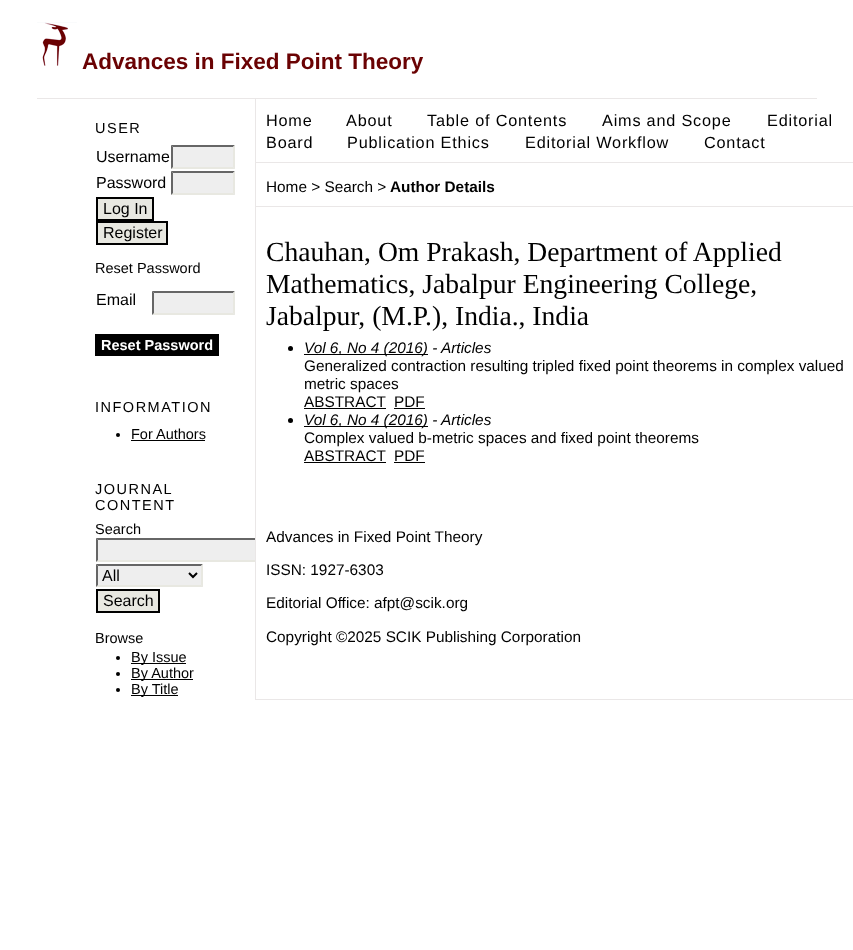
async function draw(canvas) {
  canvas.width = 853;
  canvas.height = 950;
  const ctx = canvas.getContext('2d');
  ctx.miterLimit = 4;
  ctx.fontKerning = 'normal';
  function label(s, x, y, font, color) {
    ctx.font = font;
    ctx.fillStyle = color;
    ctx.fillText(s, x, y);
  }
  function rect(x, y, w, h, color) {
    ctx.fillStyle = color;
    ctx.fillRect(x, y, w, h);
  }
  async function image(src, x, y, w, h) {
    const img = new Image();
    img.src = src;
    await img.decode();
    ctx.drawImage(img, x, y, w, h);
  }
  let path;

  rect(0, 0, 853, 950, '#fff');
  rect(37, 98, 780, 1, '#eae7e7');
  await image('assets/img1.png', 37, 22, 40, 44);
  label('Advances in Fixed Point Theory', 82, 69, 'bold 22.5px Liberation Sans', '#6a0203');
  ctx.letterSpacing = '1.5px';
  label('USER', 95, 133, '14.5px Liberation Sans', '#000');
  ctx.letterSpacing = '0px';
  label('Username', 96, 162, '16px Liberation Sans', '#000');
  rect(171, 145, 64, 24, '#eee');
  ctx.fillStyle = '#666';
  path = new Path2D('M171 145H235L233 147H173Z');
  ctx.fill(path);
  ctx.fillStyle = '#e8e8e1';
  path = new Path2D('M235 145V169L233 167V147Z');
  ctx.fill(path);
  path = new Path2D('M235 169H171L173 167H233Z');
  ctx.fill(path);
  ctx.fillStyle = '#666';
  path = new Path2D('M171 169V145L173 147V167Z');
  ctx.fill(path);
  label('Password', 96, 188, '16px Liberation Sans', '#000');
  rect(171, 171, 64, 24, '#eee');
  ctx.fillStyle = '#666';
  path = new Path2D('M171 171H235L233 173H173Z');
  ctx.fill(path);
  ctx.fillStyle = '#e8e8e1';
  path = new Path2D('M235 171V195L233 193V173Z');
  ctx.fill(path);
  path = new Path2D('M235 195H171L173 193H233Z');
  ctx.fill(path);
  ctx.fillStyle = '#666';
  path = new Path2D('M171 195V171L173 173V193Z');
  ctx.fill(path);
  ctx.fillStyle = '#e8e8e1';
  ctx.beginPath();
  ctx.rect(97, 198, 56, 22);
  ctx.fill();
  ctx.strokeStyle = '#000';
  ctx.lineWidth = 2;
  ctx.stroke();
  label('Log In', 103, 214, '16px Liberation Sans', '#000');
  ctx.fillStyle = '#e8e8e1';
  ctx.beginPath();
  ctx.rect(97, 222, 70, 22);
  ctx.fill();
  ctx.stroke();
  label('Register', 103, 238, '16px Liberation Sans', '#000');
  label('Reset Password', 95, 273, '14.5px Liberation Sans', '#000');
  label('Email', 96, 305, '16px Liberation Sans', '#000');
  rect(152, 291, 83, 24, '#eee');
  ctx.fillStyle = '#666';
  path = new Path2D('M152 291H235L233 293H154Z');
  ctx.fill(path);
  ctx.fillStyle = '#e8e8e1';
  path = new Path2D('M235 291V315L233 313V293Z');
  ctx.fill(path);
  path = new Path2D('M235 315H152L154 313H233Z');
  ctx.fill(path);
  ctx.fillStyle = '#666';
  path = new Path2D('M152 315V291L154 293V313Z');
  ctx.fill(path);
  rect(95, 334, 124, 22, '#000');
  label('Reset Password', 101, 350, 'bold 14.5px Liberation Sans', '#fff');
  ctx.letterSpacing = '1.5px';
  label('INFORMATION', 95, 412, '14.5px Liberation Sans', '#000');
  ctx.beginPath();
  ctx.arc(118, 435, 2, 0, 2 * Math.PI);
  ctx.fill();
  ctx.letterSpacing = '0px';
  label('For Authors', 131, 439, '14.5px Liberation Sans', '#000');
  rect(131, 440, 74, 1, '#000');
  ctx.letterSpacing = '1.5px';
  label('JOURNAL', 95, 494, '14.5px Liberation Sans', '#000');
  label('CONTENT', 95, 510, '14.5px Liberation Sans', '#000');
  ctx.letterSpacing = '0px';
  label('Search', 95, 534, '14.5px Liberation Sans', '#000');
  rect(96, 538, 159, 24, '#eee');
  ctx.fillStyle = '#666';
  path = new Path2D('M96 538H262L260 540H98Z');
  ctx.fill(path);
  ctx.fillStyle = '#e8e8e1';
  path = new Path2D('M262 562H96L98 560H260Z');
  ctx.fill(path);
  ctx.fillStyle = '#666';
  path = new Path2D('M96 562V538L98 540V560Z');
  ctx.fill(path);
  rect(96, 564, 107, 23, '#eee');
  ctx.fillStyle = '#666';
  path = new Path2D('M96 564H203L201 566H98Z');
  ctx.fill(path);
  ctx.fillStyle = '#e8e8e1';
  path = new Path2D('M203 564V587L201 585V566Z');
  ctx.fill(path);
  path = new Path2D('M203 587H96L98 585H201Z');
  ctx.fill(path);
  ctx.fillStyle = '#666';
  path = new Path2D('M96 587V564L98 566V585Z');
  ctx.fill(path);
  path = new Path2D('M189 573L193 577L197 573');
  ctx.stroke(path);
  label('All', 102, 581, '16px Liberation Sans', '#000');
  ctx.fillStyle = '#e8e8e1';
  ctx.beginPath();
  ctx.rect(97, 590, 62, 22);
  ctx.fill();
  ctx.stroke();
  label('Search', 103, 606, '16px Liberation Sans', '#000');
  label('Browse', 95, 643, '14.5px Liberation Sans', '#000');
  ctx.beginPath();
  ctx.arc(118, 658, 2, 0, 2 * Math.PI);
  ctx.fill();
  rect(131, 663, 55, 1, '#000');
  label('By Issue', 131, 662, '14.5px Liberation Sans', '#000');
  ctx.beginPath();
  ctx.arc(118, 674, 2, 0, 2 * Math.PI);
  ctx.fill();
  rect(131, 679, 62, 1, '#000');
  label('By Author', 131, 678, '14.5px Liberation Sans', '#000');
  ctx.beginPath();
  ctx.arc(118, 690, 2, 0, 2 * Math.PI);
  ctx.fill();
  rect(131, 695, 47, 1, '#000');
  label('By Title', 131, 694, '14.5px Liberation Sans', '#000');
  rect(256, 538, 6, 24, '#fff');
  rect(255, 699, 598, 1, '#eae7e7');
  rect(255, 99, 1, 601, '#eae7e7');
  rect(256, 162, 597, 1, '#eae7e7');
  ctx.letterSpacing = '0.8px';
  label('Home', 266, 126, '16.25px Liberation Sans', '#000');
  label('About', 346, 126, '16.25px Liberation Sans', '#000');
  label('Table of Contents', 427, 126, '16.25px Liberation Sans', '#000');
  label('Aims and Scope', 602, 126, '16.25px Liberation Sans', '#000');
  label('Editorial', 767, 126, '16.25px Liberation Sans', '#000');
  label('Board', 266, 148, '16.25px Liberation Sans', '#000');
  label('Publication Ethics', 347, 148, '16.25px Liberation Sans', '#000');
  label('Editorial Workflow', 525, 148, '16.25px Liberation Sans', '#000');
  label('Contact', 704, 148, '16.25px Liberation Sans', '#000');
  rect(256, 206, 597, 1, '#eae7e7');
  ctx.letterSpacing = '0px';
  label('Home > Search >', 266, 192, '15.35px Liberation Sans', '#000');
  label('Author Details', 390, 192, 'bold 15.35px Liberation Sans', '#000');
  label('Chauhan, Om Prakash, Department of Applied', 266, 261, '27.6px Liberation Serif', '#000');
  label('Mathematics, Jabalpur Engineering College,', 266, 293, '27.6px Liberation Serif', '#000');
  label('Jabalpur, (M.P.), India., India', 266, 325, '27.6px Liberation Serif', '#000');
  ctx.beginPath();
  ctx.arc(290.5, 348.5, 2.5, 0, 2 * Math.PI);
  ctx.fill();
  rect(304, 354, 124, 1, '#000');
  label('Vol 6, No 4 (2016) - Articles', 304, 353, 'italic 15.35px Liberation Sans', '#000');
  label('Generalized contraction resulting tripled fixed point theorems in complex valued', 304, 371, '15.35px Liberation Sans', '#000');
  label('metric spaces', 304, 389, '15.35px Liberation Sans', '#000');
  label('ABSTRACT', 304, 407, '15.35px Liberation Sans', '#000');
  rect(304, 408, 82, 1, '#000');
  label('PDF', 394, 407, '15.35px Liberation Sans', '#000');
  rect(394, 408, 31, 1, '#000');
  ctx.beginPath();
  ctx.arc(290.5, 420.5, 2.5, 0, 2 * Math.PI);
  ctx.fill();
  rect(304, 426, 124, 1, '#000');
  label('Vol 6, No 4 (2016) - Articles', 304, 425, 'italic 15.35px Liberation Sans', '#000');
  label('Complex valued b-metric spaces and fixed point theorems', 304, 443, '15.35px Liberation Sans', '#000');
  label('ABSTRACT', 304, 461, '15.35px Liberation Sans', '#000');
  rect(304, 462, 82, 1, '#000');
  label('PDF', 394, 461, '15.35px Liberation Sans', '#000');
  rect(394, 462, 31, 1, '#000');
  label('Advances in Fixed Point Theory', 266, 542, '15.35px Liberation Sans', '#000');
  label('ISSN: 1927-6303', 266, 575, '15.35px Liberation Sans', '#000');
  label('Editorial Office: afpt@scik.org', 266, 608, '15.35px Liberation Sans', '#000');
  label('Copyright ©2025 SCIK Publishing Corporation', 266, 642, '15.35px Liberation Sans', '#000');
}

draw(document.querySelector('canvas'));
